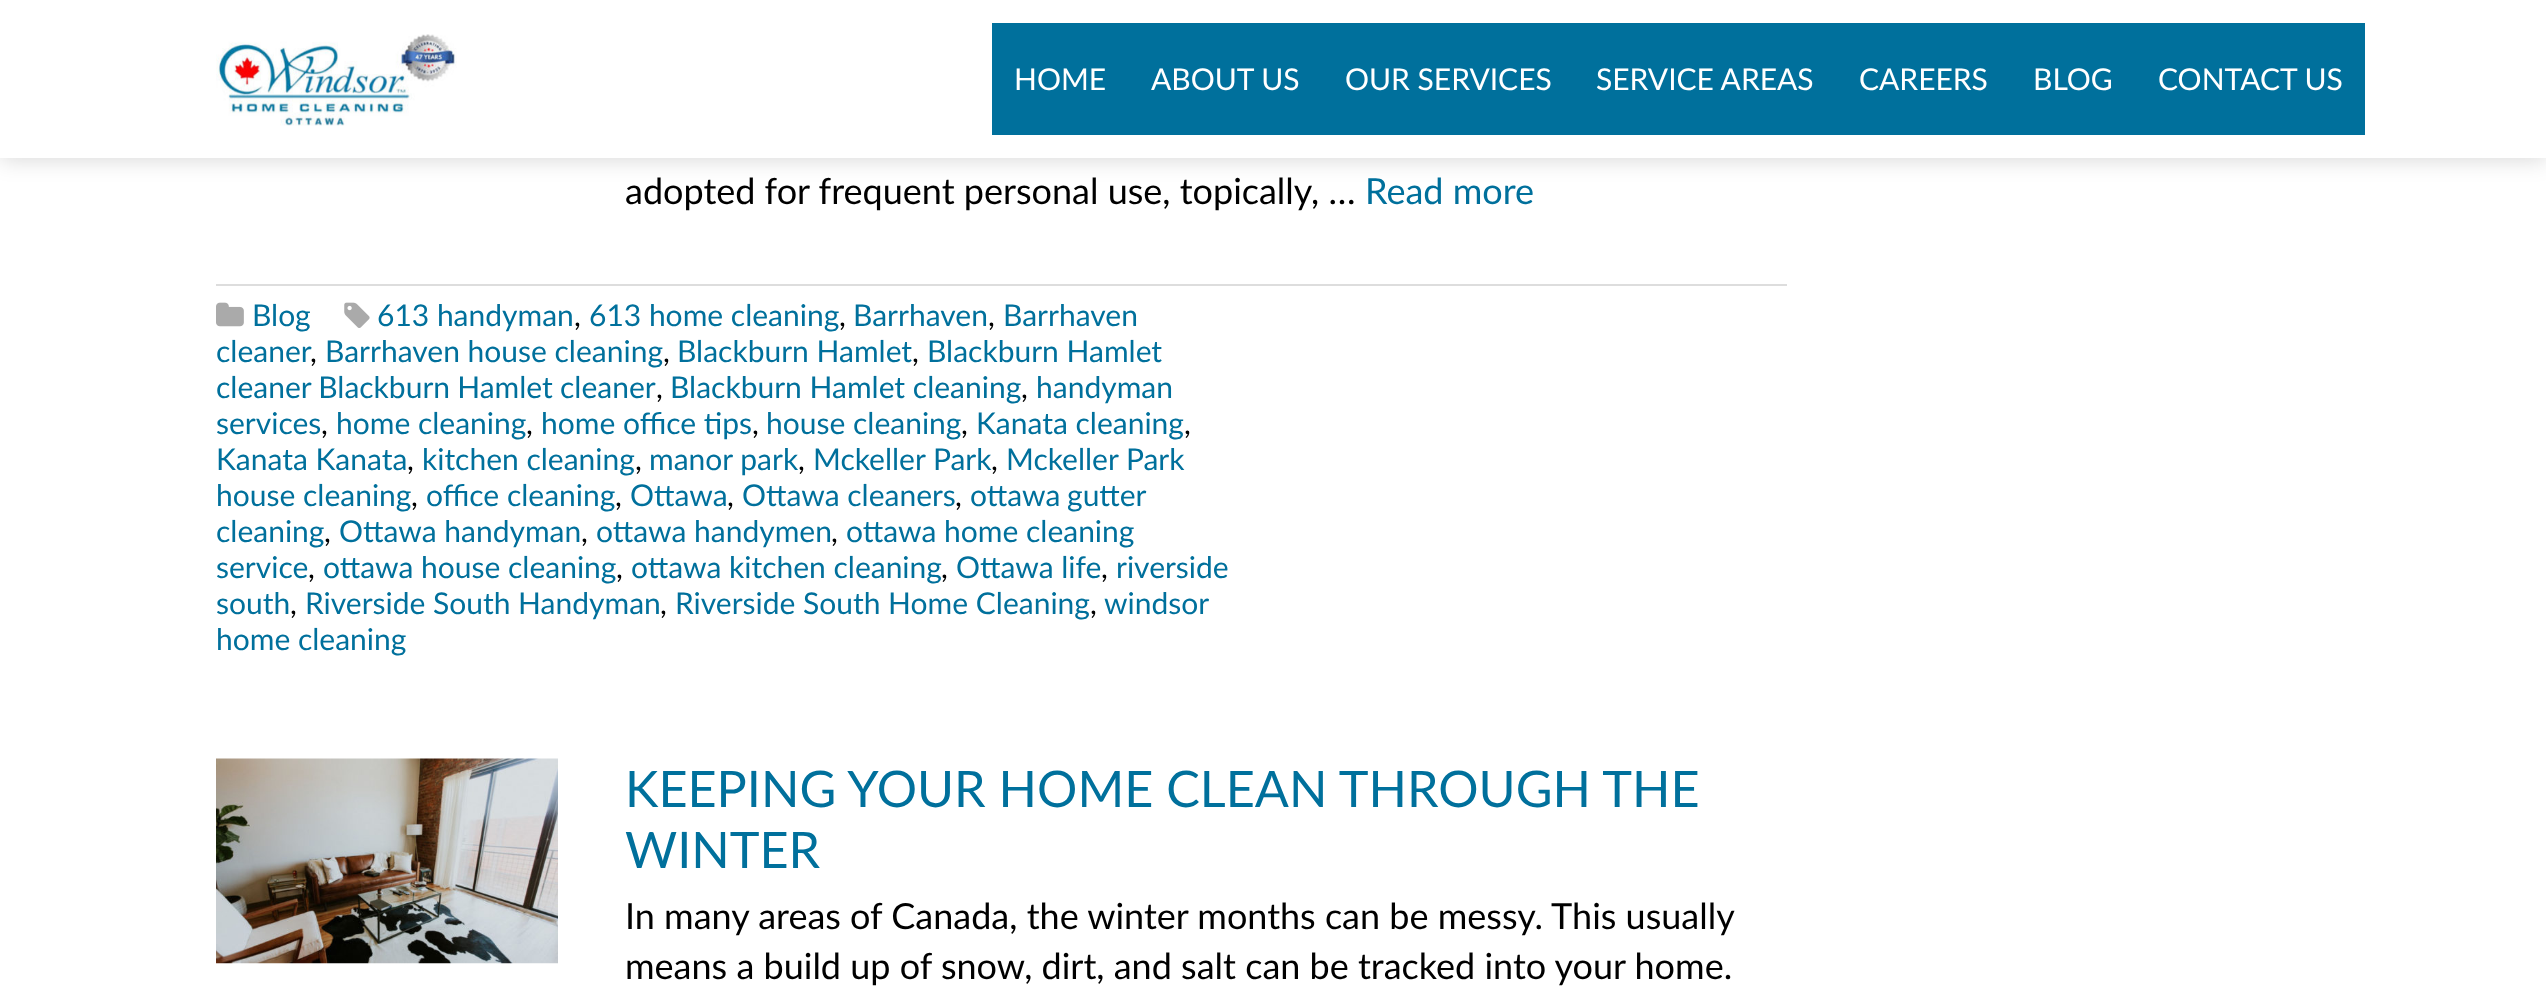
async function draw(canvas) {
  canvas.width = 2546;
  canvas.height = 995;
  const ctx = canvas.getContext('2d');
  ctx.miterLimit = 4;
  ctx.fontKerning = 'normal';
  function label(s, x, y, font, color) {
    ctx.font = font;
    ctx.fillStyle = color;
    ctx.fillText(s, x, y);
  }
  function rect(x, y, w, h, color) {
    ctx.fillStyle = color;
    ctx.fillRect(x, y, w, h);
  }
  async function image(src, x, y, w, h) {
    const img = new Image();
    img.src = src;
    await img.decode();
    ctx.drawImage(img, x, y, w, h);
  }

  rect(0, 0, 2546, 995, '#fff');
  ctx.fillStyle = '#00000026';
  ctx.filter = 'blur(11px)';
  ctx.beginPath();
  ctx.rect(0, 2, 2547, 158);
  ctx.fill();
  ctx.filter = 'none';
  rect(0, 0, 2546, 158, '#fff');
  await image('assets/img1.png', 216, 34, 241, 92);
  rect(992, 23, 1373, 112, '#00709c');
  label('HOME', 1014, 90, '30px Lato', '#fff');
  label('ABOUT US', 1151, 90, '30px Lato', '#fff');
  label('OUR SERVICES', 1345, 90, '30px Lato', '#fff');
  label('SERVICE AREAS', 1596, 90, '30px Lato', '#fff');
  label('CAREERS', 1859, 90, '30px Lato', '#fff');
  label('BLOG', 2033, 90, '30px Lato', '#fff');
  label('CONTACT US', 2158, 90, '30px Lato', '#fff');
  label('adopted for frequent personal use, topically, …', 625, 204, '36px Lato', '#000');
  label('Read more', 1365, 204, '36px Lato', '#00709c');
  rect(216, 284, 1571, 2, '#ddd');
  await image('assets/img2.png', 344, 302, 26, 26);
  label('613 handyman', 377, 326, '30px Lato', '#00709c');
  label(',', 574, 326, '30px Lato', '#000');
  label('613 home cleaning', 589, 326, '30px Lato', '#00709c');
  label(',', 839, 326, '30px Lato', '#000');
  label('Barrhaven', 853, 326, '30px Lato', '#00709c');
  label(',', 988, 326, '30px Lato', '#000');
  label('Barrhaven', 1003, 326, '30px Lato', '#00709c');
  label('cleaner', 216, 362, '30px Lato', '#00709c');
  label(',', 310, 362, '30px Lato', '#000');
  label('Barrhaven house cleaning', 325, 362, '30px Lato', '#00709c');
  label(',', 663, 362, '30px Lato', '#000');
  label('Blackburn Hamlet', 677, 362, '30px Lato', '#00709c');
  label(',', 912, 362, '30px Lato', '#000');
  label('Blackburn Hamlet', 927, 362, '30px Lato', '#00709c');
  ctx.wordSpacing = '-0.5px';
  label('cleaner Blackburn Hamlet cleaner', 216, 398, '30px Lato', '#00709c');
  ctx.wordSpacing = '0px';
  label(',', 656, 398, '30px Lato', '#000');
  label('Blackburn Hamlet cleaning', 670, 398, '30px Lato', '#00709c');
  label(',', 1021, 398, '30px Lato', '#000');
  label('handyman', 1036, 398, '30px Lato', '#00709c');
  label('services', 216, 434, '30px Lato', '#00709c');
  label(',', 321, 434, '30px Lato', '#000');
  label('home cleaning', 336, 434, '30px Lato', '#00709c');
  label(',', 526, 434, '30px Lato', '#000');
  label('home office tips', 541, 434, '30px Lato', '#00709c');
  label(',', 752, 434, '30px Lato', '#000');
  label('house cleaning', 766, 434, '30px Lato', '#00709c');
  label(',', 961, 434, '30px Lato', '#000');
  label('Kanata cleaning', 976, 434, '30px Lato', '#00709c');
  label(',', 1184, 434, '30px Lato', '#000');
  label('Kanata Kanata', 216, 470, '30px Lato', '#00709c');
  label(',', 407, 470, '30px Lato', '#000');
  label('kitchen cleaning', 422, 470, '30px Lato', '#00709c');
  label(',', 635, 470, '30px Lato', '#000');
  label('manor park', 649, 470, '30px Lato', '#00709c');
  label(',', 798, 470, '30px Lato', '#000');
  label('Mckeller Park', 813, 470, '30px Lato', '#00709c');
  label(',', 991, 470, '30px Lato', '#000');
  label('Mckeller Park', 1006, 470, '30px Lato', '#00709c');
  label('house cleaning', 216, 506, '30px Lato', '#00709c');
  label(',', 411, 506, '30px Lato', '#000');
  label('office cleaning', 426, 506, '30px Lato', '#00709c');
  label(',', 615, 506, '30px Lato', '#000');
  label('Ottawa', 630, 506, '30px Lato', '#00709c');
  label(',', 727, 506, '30px Lato', '#000');
  label('Ottawa cleaners', 742, 506, '30px Lato', '#00709c');
  label(',', 955, 506, '30px Lato', '#000');
  ctx.wordSpacing = '-1px';
  label('ottawa gutter', 970, 506, '30px Lato', '#00709c');
  ctx.wordSpacing = '0px';
  label('cleaning', 216, 542, '30px Lato', '#00709c');
  label(',', 324, 542, '30px Lato', '#000');
  label('Ottawa handyman', 339, 542, '30px Lato', '#00709c');
  label(',', 581, 542, '30px Lato', '#000');
  label('ottawa handymen', 596, 542, '30px Lato', '#00709c');
  label(',', 831, 542, '30px Lato', '#000');
  label('ottawa home cleaning', 846, 542, '30px Lato', '#00709c');
  label('service', 216, 578, '30px Lato', '#00709c');
  label(',', 308, 578, '30px Lato', '#000');
  label('ottawa house cleaning', 323, 578, '30px Lato', '#00709c');
  label(',', 616, 578, '30px Lato', '#000');
  label('ottawa kitchen cleaning', 631, 578, '30px Lato', '#00709c');
  label(',', 941, 578, '30px Lato', '#000');
  label('Ottawa life', 956, 578, '30px Lato', '#00709c');
  label(',', 1101, 578, '30px Lato', '#000');
  label('riverside', 1116, 578, '30px Lato', '#00709c');
  label('south', 216, 614, '30px Lato', '#00709c');
  label(',', 290, 614, '30px Lato', '#000');
  label('Riverside South Handyman', 305, 614, '30px Lato', '#00709c');
  label(',', 660, 614, '30px Lato', '#000');
  label('Riverside South Home Cleaning', 675, 614, '30px Lato', '#00709c');
  label(',', 1090, 614, '30px Lato', '#000');
  label('windsor', 1104, 614, '30px Lato', '#00709c');
  label('home cleaning', 216, 650, '30px Lato', '#00709c');
  await image('assets/img3.png', 216, 302, 28, 25);
  label('Blog', 252, 326, '30px Lato', '#00709c');
  await image('assets/img4.png', 216, 758, 342, 206);
  label('KEEPING YOUR HOME CLEAN THROUGH THE', 625, 807, '50.4px Lato', '#00709c');
  label('WINTER', 625, 868, '50.4px Lato', '#00709c');
  label('In many areas of Canada, the winter months can be messy. This usually', 625, 929, '36px Lato', '#000');
  label('means a build up of snow, dirt, and salt can be tracked into your home.', 625, 979, '36px Lato', '#000');
}

draw(document.querySelector('canvas'));
